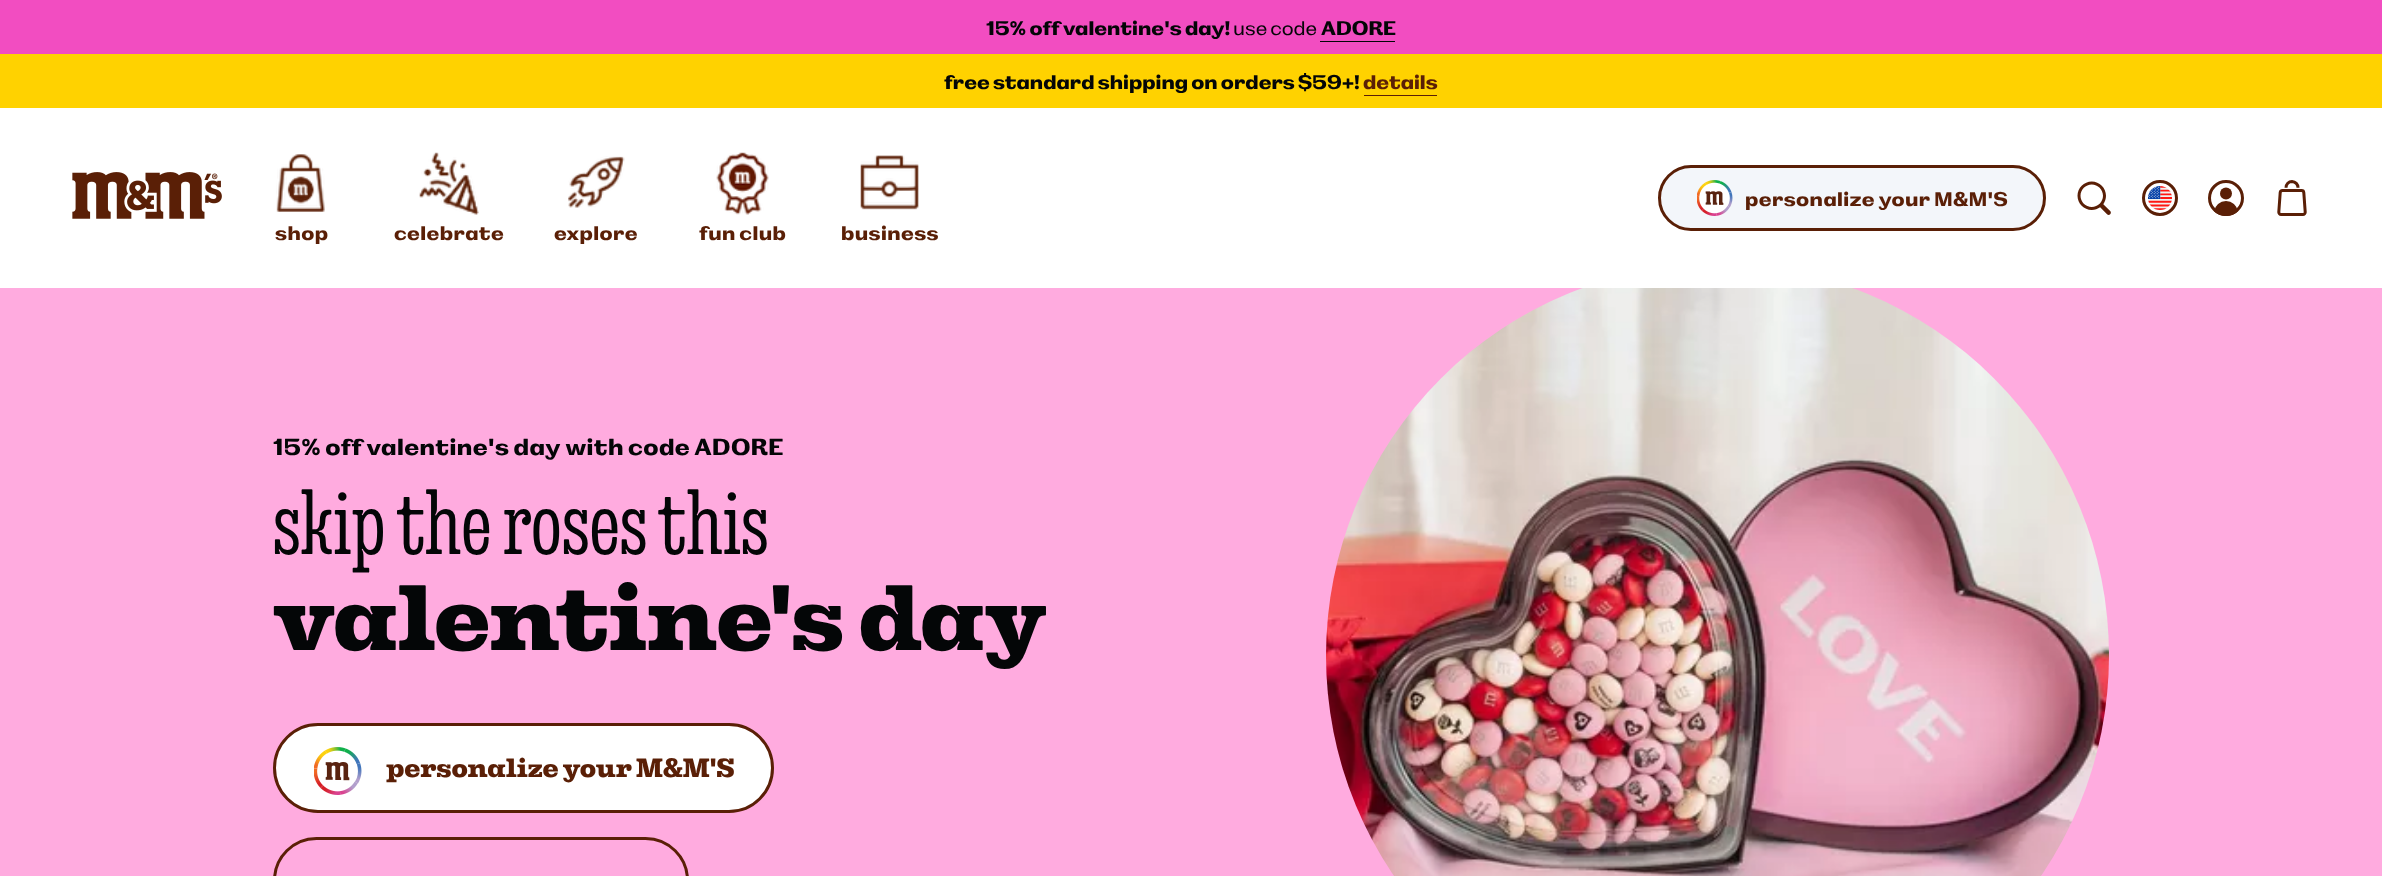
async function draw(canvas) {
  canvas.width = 2382;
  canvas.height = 876;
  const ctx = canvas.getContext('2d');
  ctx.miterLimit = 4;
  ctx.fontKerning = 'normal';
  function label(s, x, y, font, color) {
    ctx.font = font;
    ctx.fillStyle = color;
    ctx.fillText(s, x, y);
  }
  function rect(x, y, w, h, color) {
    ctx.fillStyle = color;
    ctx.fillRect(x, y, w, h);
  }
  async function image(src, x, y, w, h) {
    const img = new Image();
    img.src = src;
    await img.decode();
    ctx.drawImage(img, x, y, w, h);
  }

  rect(0, 0, 2382, 876, '#fff');
  rect(0, 0, 2382, 54, '#f24dc1');
  label('15% off valentine\'s day!', 986, 35, 'bold 18px "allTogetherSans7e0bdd"', '#040607');
  label('use code', 1233, 35, '300 18px "allTogetherSans7e0bdd"', '#040607');
  label('ADORE', 1321, 35, 'bold 18px "allTogetherSans7e0bdd"', '#040607');
  rect(1320, 41, 75, 1, '#040607');
  rect(0, 54, 2382, 54, '#ffd200');
  label('free standard shipping on orders $59+!', 944, 89, 'bold 18px "allTogetherSans7e0bdd"', '#040607');
  label('details', 1363, 89, 'bold 18px "allTogetherSans7e0bdd"', '#5a1f06');
  rect(1364, 95, 73, 1, '#5a1f06');
  ctx.fillStyle = '#f3f6fa';
  ctx.beginPath();
  ctx.roundRect(1659.5, 166.5, 385, 63, 31.5);
  ctx.fill();
  ctx.strokeStyle = '#5a1f06';
  ctx.lineWidth = 3;
  ctx.stroke();
  await image('assets/img1.png', 1697, 180, 36, 36);
  ctx.letterSpacing = '0.4px';
  label('personalize your M&M\'S', 1745, 206, 'bold 18px "allTogetherSans7e0bdd"', '#5a1f06');
  await image('assets/img2.png', 2077, 181, 34, 34);
  ctx.beginPath();
  ctx.arc(2160, 198, 16.5, 0, 2 * Math.PI);
  ctx.stroke();
  await image('assets/img3.png', 2148, 186, 24, 24);
  await image('assets/img4.png', 2208, 180, 36, 36);
  await image('assets/img5.png', 2277, 180, 30, 36);
  await image('assets/img6.png', 72, 172, 150, 47);
  await image('assets/img7.png', 276, 154, 49, 58);
  label('shop', 275, 240, 'bold 18px "allTogetherSans7e0bdd"', '#5a1f06');
  await image('assets/img8.png', 419, 152, 60, 63);
  label('celebrate', 394, 240, 'bold 18px "allTogetherSans7e0bdd"', '#5a1f06');
  await image('assets/img9.png', 568, 156, 57, 52);
  label('explore', 554, 240, 'bold 18px "allTogetherSans7e0bdd"', '#5a1f06');
  await image('assets/img10.png', 716, 152, 53, 63);
  label('fun club', 699, 240, 'bold 18px "allTogetherSans7e0bdd"', '#5a1f06');
  await image('assets/img11.png', 860, 155, 59, 55);
  label('business', 841, 240, 'bold 18px "allTogetherSans7e0bdd"', '#5a1f06');
  rect(0, 288, 2382, 588, '#ffabdf');
  label('15% off valentine\'s day with code ADORE', 273, 455, 'bold 21px "allTogetherSans7e0bdd"', '#040607');
  ctx.letterSpacing = '0px';
  label('skip the roses this', 273, 554, '300 84px "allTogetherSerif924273"', '#040607');
  label('valentine\'s day', 273, 650, 'bold 84px "allTogetherSerif924273"', '#040607');
  ctx.fillStyle = '#fff';
  ctx.beginPath();
  ctx.roundRect(274.5, 724.5, 498, 87, 43.5);
  ctx.fill();
  ctx.stroke();
  await image('assets/img12.png', 314, 747, 48, 48);
  label('personalize your M&M\'S', 386, 777, 'bold 24px "allTogetherSerif924273"', '#5a1f06');
  ctx.beginPath();
  ctx.roundRect(274.5, 838.5, 413, 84, 43.5);
  ctx.stroke();
  await image('assets/img13.png', 1326, 288, 783, 588);
}

draw(document.querySelector('canvas'));
